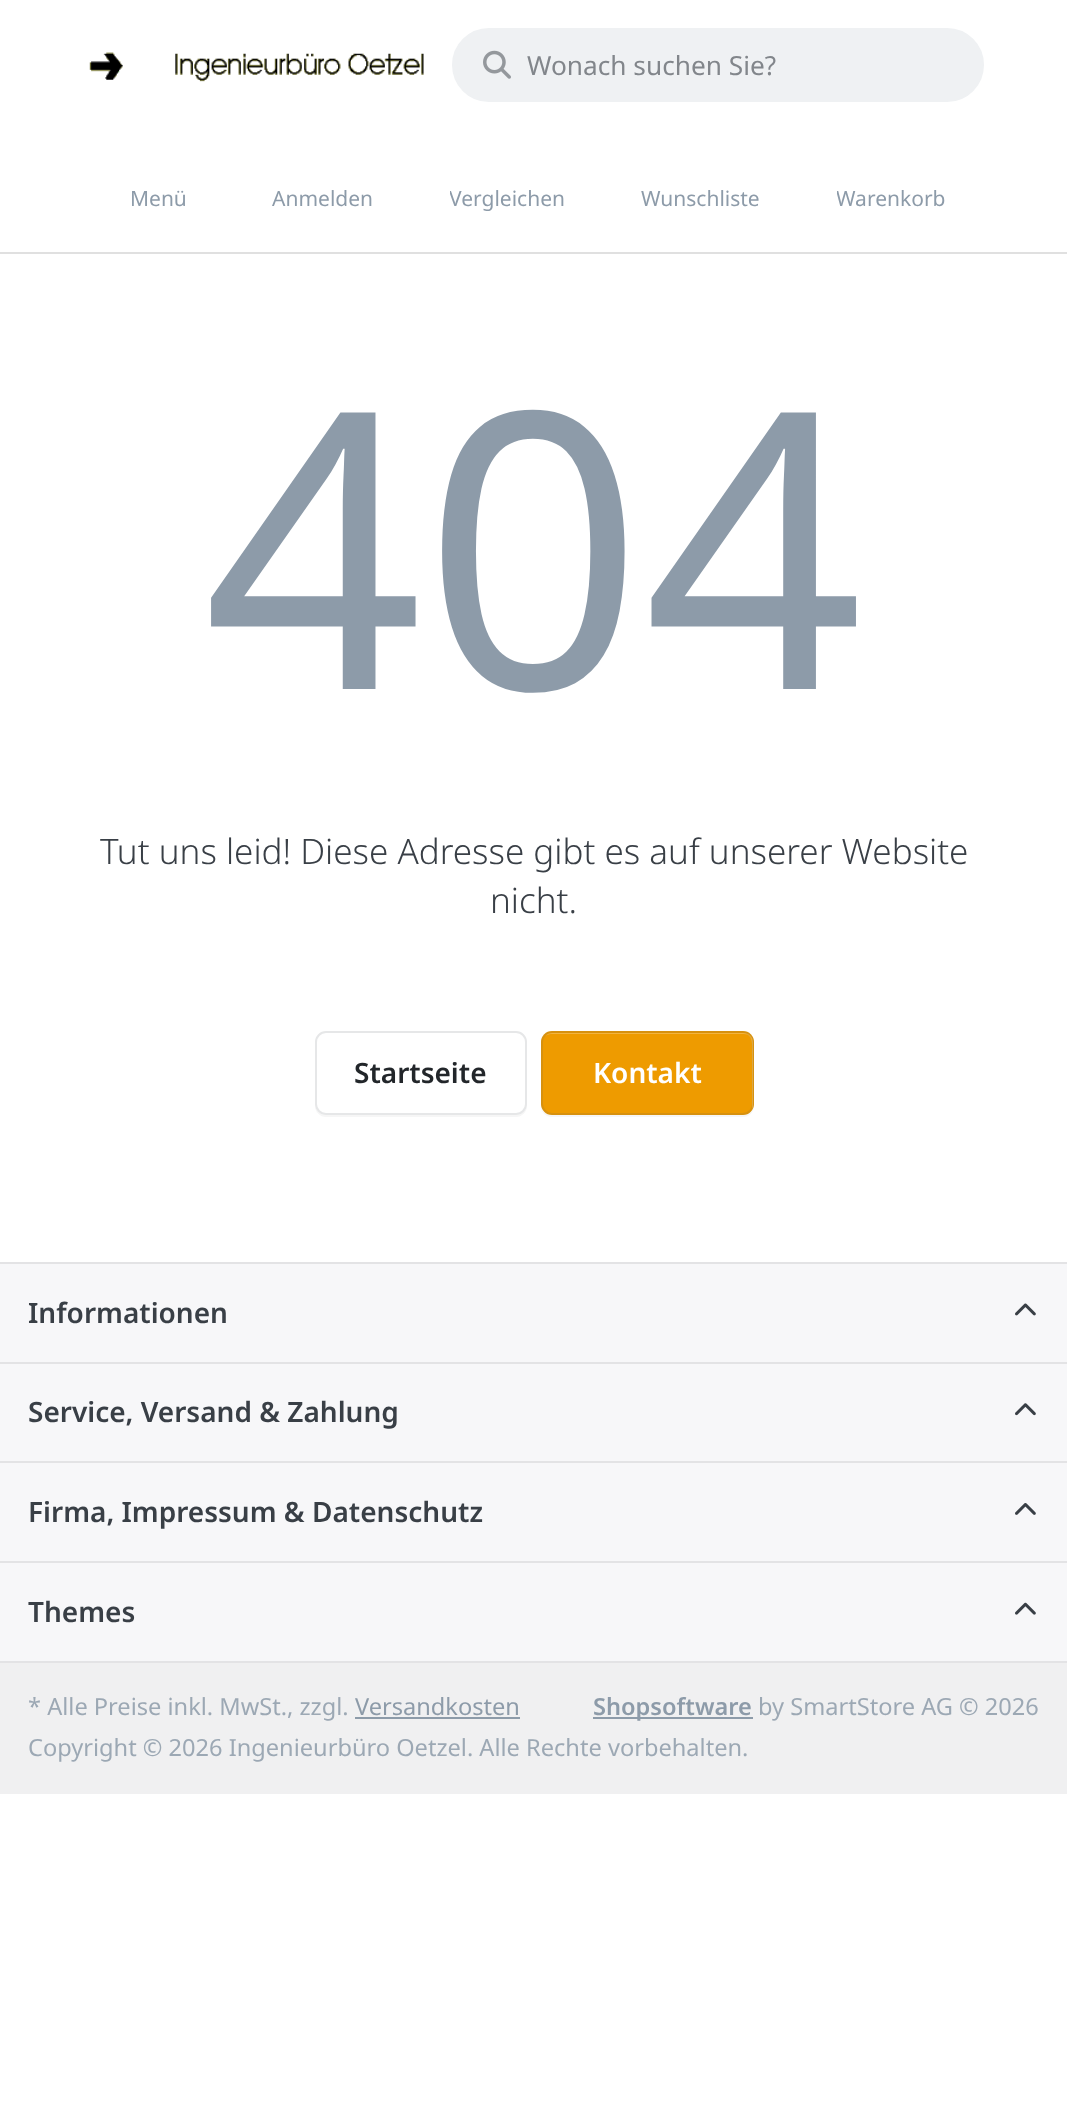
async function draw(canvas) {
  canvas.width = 1067;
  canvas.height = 2122;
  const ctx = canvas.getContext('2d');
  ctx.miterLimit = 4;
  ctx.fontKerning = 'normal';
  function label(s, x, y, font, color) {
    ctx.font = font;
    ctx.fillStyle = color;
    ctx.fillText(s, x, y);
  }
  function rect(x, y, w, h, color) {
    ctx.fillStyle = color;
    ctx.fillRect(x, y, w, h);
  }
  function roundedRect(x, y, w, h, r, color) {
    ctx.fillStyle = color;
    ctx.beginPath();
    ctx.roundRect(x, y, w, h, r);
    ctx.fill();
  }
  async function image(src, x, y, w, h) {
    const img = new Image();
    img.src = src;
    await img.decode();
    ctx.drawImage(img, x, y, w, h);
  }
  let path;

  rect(0, 0, 1067, 2122, '#fff');
  rect(0, 252, 1067, 2, '#e0e0e0');
  await image('assets/img1.png', 89, 52, 335, 30);
  ctx.fillStyle = '#eff1f3';
  ctx.beginPath();
  ctx.roundRect(453, 29, 530, 72, 36);
  ctx.fill();
  ctx.strokeStyle = '#eff1f3';
  ctx.lineWidth = 2;
  ctx.stroke();
  await image('assets/img2.png', 483, 50, 28, 29);
  label('Wonach suchen Sie?', 527, 75, '26.25px Noto Sans', '#82868b');
  label('Menü', 130, 206, '21px Noto Sans', '#8d9ba9');
  label('Anmelden', 272, 206, '21px Noto Sans', '#8d9ba9');
  ctx.save();
  ctx.beginPath();
  ctx.rect(450, 186, 115, 26);
  ctx.clip();
  label('Vergleichen', 449, 206, '21px Noto Sans', '#8d9ba9');
  ctx.restore();
  label('Wunschliste', 641, 206, '21px Noto Sans', '#8d9ba9');
  ctx.save();
  ctx.beginPath();
  ctx.rect(837, 186, 108, 26);
  ctx.clip();
  label('Warenkorb', 836, 206, '21px Noto Sans', '#8d9ba9');
  ctx.restore();
  label('404', 203, 689, '385px Noto Sans', '#8d9ba9');
  label('Tut uns leid! Diese Adresse gibt es auf unserer Website', 100, 864, '300 35px Noto Sans', '#393f46');
  label('nicht.', 490, 913, '300 35px Noto Sans', '#393f46');
  ctx.fillStyle = '#f6f6f6';
  path = new Path2D('M315 1104V1106C315 1112 320 1117 326 1117H516C522 1117 527 1112 527 1106V1042V1104C527 1110 522 1115 516 1115H326C320 1115 315 1110 315 1104Z');
  ctx.fill(path);
  ctx.beginPath();
  ctx.roundRect(316, 1032, 210, 82, 10);
  ctx.strokeStyle = '#e6e7e8';
  ctx.stroke();
  label('Startseite', 354, 1083, '600 28px Noto Sans', '#22262a');
  ctx.fillStyle = '#f6f6f6';
  path = new Path2D('M541 1107C541 1112 546 1117 552 1117H743C749 1117 754 1112 754 1107C753 1111 749 1115 744 1115H551C546 1115 542 1111 541 1107Z');
  ctx.fill(path);
  roundedRect(541, 1031, 213, 84, 11, '#ee9b00');
  ctx.fillStyle = '#f2b440';
  path = new Path2D('M551 1034H744C754 1034 752 1047 752 1054V1109C753 1107 753 1106 753 1104V1042C753 1037 749 1033 744 1033H552C549 1033 547 1034 545 1036C547 1035 549 1034 551 1034Z');
  ctx.fill(path);
  ctx.beginPath();
  ctx.roundRect(542, 1032, 211, 82, 10);
  ctx.strokeStyle = '#59616726';
  ctx.stroke();
  label('Kontakt', 593, 1083, '600 28px Noto Sans', '#fff');
  rect(0, 1264, 1067, 397, '#f7f7f9');
  rect(0, 1262, 1067, 2, '#e3e3e5');
  rect(0, 1362, 1067, 2, '#e3e3e5');
  label('Informationen', 28, 1323, '600 28px Noto Sans', '#393f46');
  await image('assets/img3.png', 1015, 1303, 21, 13);
  rect(0, 1461, 1067, 2, '#e3e3e5');
  label('Service, Versand & Zahlung', 28, 1422, '600 28px Noto Sans', '#393f46');
  await image('assets/img4.png', 1015, 1403, 21, 13);
  rect(0, 1561, 1067, 2, '#e3e3e5');
  label('Firma, Impressum & Datenschutz', 28, 1522, '600 28px Noto Sans', '#393f46');
  await image('assets/img5.png', 1015, 1503, 21, 12);
  rect(0, 1661, 1067, 2, '#e3e3e5');
  label('Themes', 28, 1622, '600 28px Noto Sans', '#393f46');
  await image('assets/img6.png', 1015, 1602, 21, 13);
  rect(0, 1663, 1067, 131, '#f0f0f1');
  label('* Alle Preise inkl. MwSt., zzgl.', 28, 1715, '23.6px Noto Sans', '#9ca8b4');
  label('Versandkosten', 355, 1715, '23.6px Noto Sans', '#8d9ba9');
  rect(355, 1717, 165, 2, '#8d9ba9');
  rect(593, 1717, 160, 2, '#8d9ba9');
  label('Shopsoftware', 593, 1715, '600 23.6px Noto Sans', '#8d9ba9');
  label('by SmartStore AG © 2026', 758, 1715, '23.6px Noto Sans', '#9ca8b4');
  label('Copyright © 2026 Ingenieurbüro Oetzel. Alle Rechte vorbehalten.', 28, 1756, '23.6px Noto Sans', '#9ca8b4');
}

draw(document.querySelector('canvas'));
